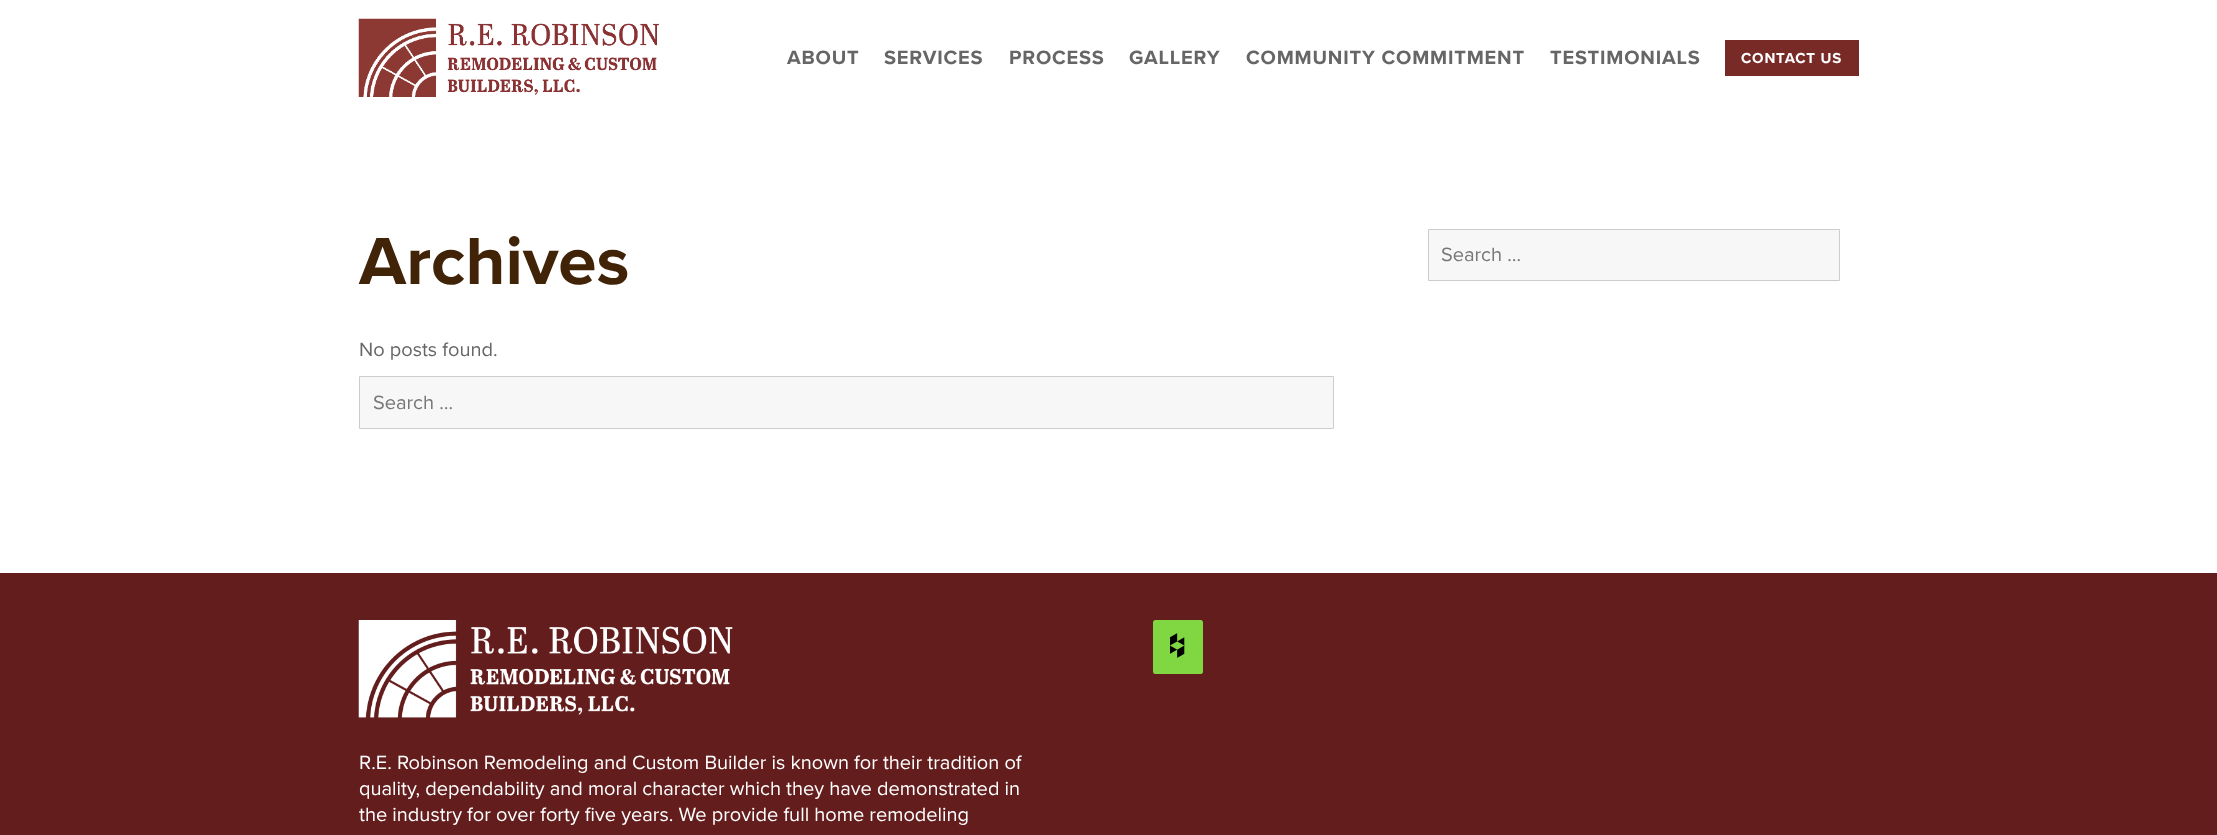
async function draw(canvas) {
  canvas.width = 2217;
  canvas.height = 835;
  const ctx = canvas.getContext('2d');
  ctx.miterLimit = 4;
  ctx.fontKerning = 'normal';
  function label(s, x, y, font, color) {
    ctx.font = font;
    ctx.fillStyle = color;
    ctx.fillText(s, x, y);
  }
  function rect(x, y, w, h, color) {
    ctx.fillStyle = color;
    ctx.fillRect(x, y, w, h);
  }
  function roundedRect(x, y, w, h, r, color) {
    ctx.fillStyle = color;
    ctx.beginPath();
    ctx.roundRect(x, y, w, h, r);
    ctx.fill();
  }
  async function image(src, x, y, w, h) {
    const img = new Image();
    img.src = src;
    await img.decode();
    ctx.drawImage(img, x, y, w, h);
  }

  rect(0, 0, 2217, 835, '#fff');
  await image('assets/img1.png', 358, 18, 301, 79);
  ctx.letterSpacing = '0.8px';
  label('ABOUT', 787, 64, 'bold 20px Proxima Nova', '#666');
  label('SERVICES', 884, 64, 'bold 20px Proxima Nova', '#666');
  label('PROCESS', 1009, 64, 'bold 20px Proxima Nova', '#666');
  label('GALLERY', 1129, 64, 'bold 20px Proxima Nova', '#666');
  label('COMMUNITY COMMITMENT', 1246, 64, 'bold 20px Proxima Nova', '#666');
  label('TESTIMONIALS', 1550, 64, 'bold 20px Proxima Nova', '#666');
  rect(1725, 40, 134, 36, '#782a27');
  label('CONTACT US', 1741, 63, 'bold 15px Proxima Nova', '#fff');
  ctx.letterSpacing = '0px';
  label('Archives', 359, 284, 'bold 69px Proxima Nova', '#412308');
  label('No posts found.', 359, 356, '20px Proxima Nova', '#666');
  ctx.fillStyle = '#f7f7f7';
  ctx.beginPath();
  ctx.rect(359.5, 376.5, 974, 52);
  ctx.fill();
  ctx.strokeStyle = '#ccc';
  ctx.stroke();
  label('Search …', 373, 409, '20px Proxima Nova', '#777');
  ctx.fillStyle = '#f7f7f7';
  ctx.beginPath();
  ctx.rect(1428.5, 229.5, 411, 51);
  ctx.fill();
  ctx.stroke();
  label('Search …', 1441, 261, '20px Proxima Nova', '#777');
  rect(0, 573, 2217, 262, '#631d1d');
  roundedRect(1153, 620, 50, 54, 2.5, '#81d742');
  await image('assets/img2.png', 1170, 633, 15, 25);
  await image('assets/img3.png', 358, 620, 375, 98);
  label('R.E. Robinson Remodeling and Custom Builder is known for their tradition of', 359, 769, '20px Proxima Nova', '#fff');
  label('quality, dependability and moral character which they have demonstrated in', 359, 795, '20px Proxima Nova', '#fff');
  label('the industry for over forty five years. We provide full home remodeling', 359, 821, '20px Proxima Nova', '#fff');
}

draw(document.querySelector('canvas'));
